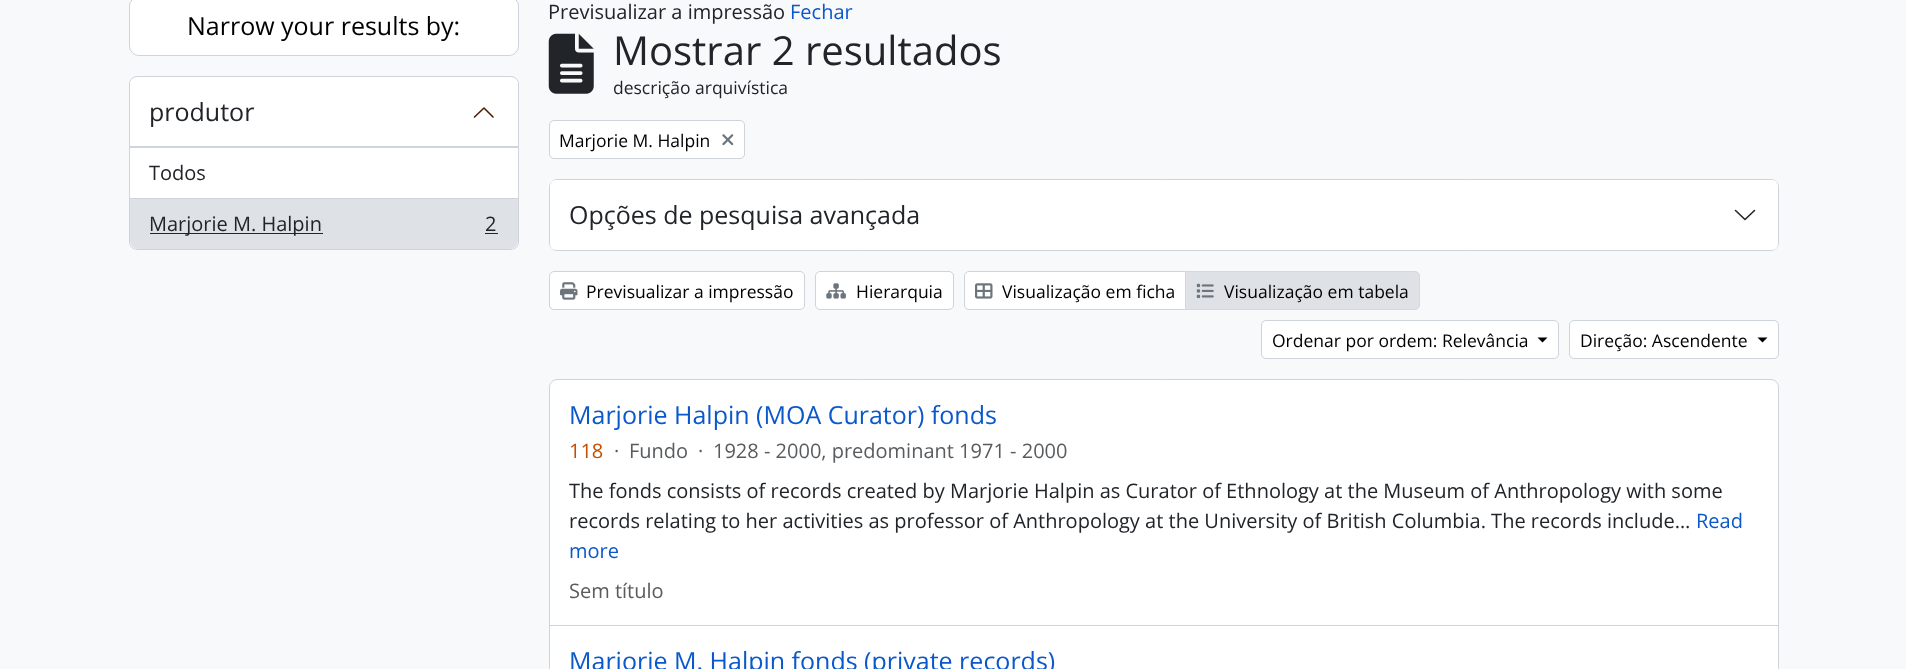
async function draw(canvas) {
  canvas.width = 1906;
  canvas.height = 669;
  const ctx = canvas.getContext('2d');
  ctx.miterLimit = 4;
  ctx.fontKerning = 'normal';
  function label(s, x, y, font, color) {
    ctx.font = font;
    ctx.fillStyle = color;
    ctx.fillText(s, x, y);
  }
  function rect(x, y, w, h, color) {
    ctx.fillStyle = color;
    ctx.fillRect(x, y, w, h);
  }
  function roundedRect(x, y, w, h, r, color) {
    ctx.fillStyle = color;
    ctx.beginPath();
    ctx.roundRect(x, y, w, h, r);
    ctx.fill();
  }
  async function image(src, x, y, w, h) {
    const img = new Image();
    img.src = src;
    await img.decode();
    ctx.drawImage(img, x, y, w, h);
  }
  let path;

  rect(0, 0, 1906, 669, '#f8f9fa');
  ctx.fillStyle = '#fff';
  ctx.beginPath();
  ctx.roundRect(129.5, -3.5, 389, 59, 9.5);
  ctx.fill();
  ctx.strokeStyle = '#ced4da';
  ctx.stroke();
  label('Narrow your results by:', 187, 35, '25px Open Sans', '#000');
  ctx.fillStyle = '#fff';
  ctx.beginPath();
  ctx.roundRect(129.5, 76.5, 389, 173, 7.5);
  ctx.fill();
  ctx.stroke();
  ctx.beginPath();
  ctx.roundRect(130, 78, 388, 70, [6, 6, 0, 0]);
  ctx.fill();
  rect(130, 146, 388, 2, '#ced4da');
  label('produtor', 149, 121, '25px Open Sans', '#212529');
  path = new Path2D('M493 117L484 108L474.5 117');
  ctx.strokeStyle = '#4e1f00';
  ctx.lineWidth = 1.6;
  ctx.lineCap = 'round';
  ctx.lineJoin = 'round';
  ctx.stroke(path);
  rect(130, 198, 388, 1, '#ced4da');
  label('Todos', 149, 180, '20px Open Sans', '#212529');
  ctx.fillStyle = '#dee2e6';
  ctx.beginPath();
  ctx.roundRect(130, 199, 388, 50, [0, 0, 8, 8]);
  ctx.fill();
  rect(150, 233, 173, 1, '#212529');
  label('Marjorie M. Halpin', 149, 231, '20px Open Sans', '#212529');
  label('2', 485, 231, '20px Open Sans', '#212529');
  rect(485, 233, 13, 1, '#212529');
  label('Previsualizar a impressão', 548, 19, '20px Open Sans', '#212529');
  label('Fechar', 790, 19, '20px Open Sans', '#0a58ca');
  await image('assets/img1.png', 548, 33, 46, 61);
  label('Mostrar 2 resultados', 613, 65, '40px Open Sans', '#212529');
  label('descrição arquivística', 613, 94, '17.5px Open Sans', '#212529');
  ctx.fillStyle = '#fff';
  ctx.beginPath();
  ctx.roundRect(549.5, 120.5, 195, 38, 4.5);
  ctx.fill();
  ctx.strokeStyle = '#ced4da';
  ctx.lineWidth = 1;
  ctx.lineJoin = 'miter';
  ctx.stroke();
  label('Marjorie M. Halpin', 559, 147, '17.5px Open Sans', '#000');
  await image('assets/img2.png', 722, 134, 12, 12);
  ctx.beginPath();
  ctx.roundRect(549.5, 179.5, 1229, 71, 7.5);
  ctx.stroke();
  roundedRect(550, 180, 1228, 70, 6, '#fff');
  label('Opções de pesquisa avançada', 569, 224, '25px Open Sans', '#212529');
  path = new Path2D('M1735.5 210.5L1745 219.5L1754.5 210.5');
  ctx.strokeStyle = '#212529';
  ctx.lineWidth = 1.6;
  ctx.lineJoin = 'round';
  ctx.stroke(path);
  ctx.fillStyle = '#fff';
  ctx.beginPath();
  ctx.roundRect(549.5, 271.5, 255, 38, 4.5);
  ctx.fill();
  ctx.strokeStyle = '#ced4da';
  ctx.lineWidth = 1;
  ctx.lineJoin = 'miter';
  ctx.stroke();
  await image('assets/img3.png', 560, 282, 18, 18);
  label('Previsualizar a impressão', 586, 298, '17.5px Open Sans', '#000');
  ctx.fillStyle = '#fff';
  ctx.beginPath();
  ctx.roundRect(815.5, 271.5, 138, 38, 4.5);
  ctx.fill();
  ctx.stroke();
  await image('assets/img4.png', 826, 283, 20, 16);
  label('Hierarquia', 856, 298, '17.5px Open Sans', '#000');
  ctx.fillStyle = '#fff';
  ctx.beginPath();
  ctx.roundRect(964.5, 271.5, 221, 38, [4.5, 0, 0, 4.5]);
  ctx.fill();
  ctx.stroke();
  await image('assets/img5.png', 975, 283, 18, 16);
  label('Visualização em ficha', 1002, 298, '17.5px Open Sans', '#000');
  ctx.fillStyle = '#dee2e6';
  ctx.beginPath();
  ctx.roundRect(1185.5, 271.5, 234, 38, [0, 4.5, 4.5, 0]);
  ctx.fill();
  ctx.strokeStyle = '#d3d8de';
  ctx.stroke();
  await image('assets/img6.png', 1196, 283, 18, 16);
  label('Visualização em tabela', 1224, 298, '17.5px Open Sans', '#000');
  ctx.fillStyle = '#fff';
  ctx.beginPath();
  ctx.roundRect(1261.5, 320.5, 297, 38, 4.5);
  ctx.fill();
  ctx.strokeStyle = '#ced4da';
  ctx.stroke();
  label('Ordenar por ordem: Relevância', 1272, 347, '17.5px Open Sans', '#000');
  path = new Path2D('M1537.5 337.5H1547.5L1542.5 342.5Z');
  ctx.fill(path);
  ctx.fillStyle = '#fff';
  ctx.beginPath();
  ctx.roundRect(1569.5, 320.5, 209, 38, 4.5);
  ctx.fill();
  ctx.stroke();
  label('Direção: Ascendente', 1580, 347, '17.5px Open Sans', '#000');
  path = new Path2D('M1757.5 337.5H1767.5L1762.5 342.5Z');
  ctx.fill(path);
  ctx.fillStyle = '#fff';
  ctx.beginPath();
  ctx.roundRect(549.5, 379.5, 1229, 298, 7.5);
  ctx.fill();
  ctx.stroke();
  rect(550, 625, 1228, 1, '#ced4da');
  label('Marjorie Halpin (MOA Curator) fonds', 569, 424, '25px Open Sans', '#0a58ca');
  label('118', 569, 458, '20px Open Sans', '#c44e00');
  label('·', 614, 458, '20px Open Sans', '#595c5f');
  label('Fundo', 629, 458, '20px Open Sans', '#595c5f');
  label('·', 698, 458, '20px Open Sans', '#595c5f');
  label('1928 - 2000, predominant 1971 - 2000', 713, 458, '20px Open Sans', '#595c5f');
  label('The fonds consists of records created by Marjorie Halpin as Curator of Ethnology at the Museum of Anthropology with some', 569, 498, '20px Open Sans', '#212529');
  label('records relating to her activities as professor of Anthropology at the University of British Columbia. The records include…', 569, 528, '20px Open Sans', '#212529');
  label('Read', 1696, 528, '20px Open Sans', '#0a58ca');
  label('more', 569, 558, '20px Open Sans', '#0a58ca');
  label('Sem título', 569, 598, '20px Open Sans', '#595c5f');
  label('Marjorie M. Halpin fonds (private records)', 569, 670, '25px Open Sans', '#0a58ca');
}

draw(document.querySelector('canvas'));
